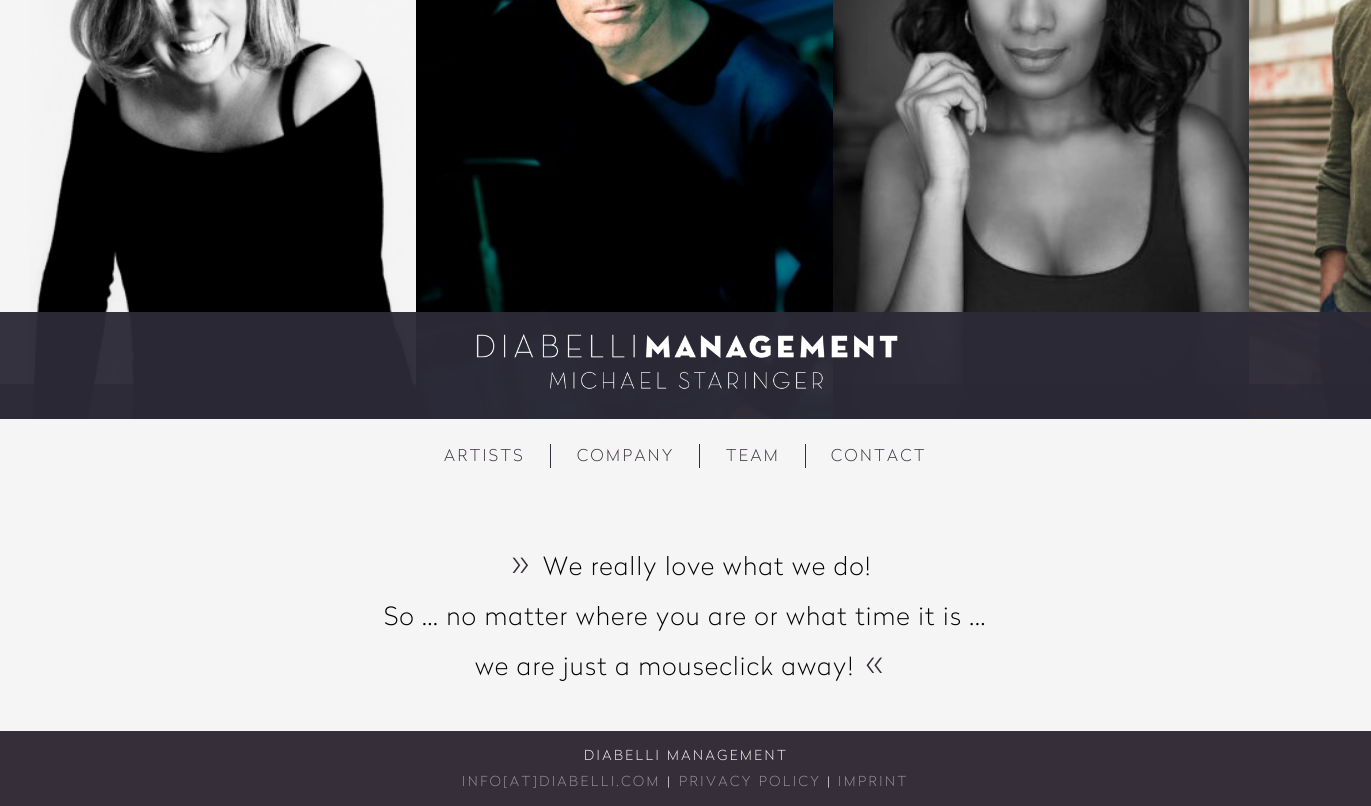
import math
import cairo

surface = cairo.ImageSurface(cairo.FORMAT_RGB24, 1371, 806)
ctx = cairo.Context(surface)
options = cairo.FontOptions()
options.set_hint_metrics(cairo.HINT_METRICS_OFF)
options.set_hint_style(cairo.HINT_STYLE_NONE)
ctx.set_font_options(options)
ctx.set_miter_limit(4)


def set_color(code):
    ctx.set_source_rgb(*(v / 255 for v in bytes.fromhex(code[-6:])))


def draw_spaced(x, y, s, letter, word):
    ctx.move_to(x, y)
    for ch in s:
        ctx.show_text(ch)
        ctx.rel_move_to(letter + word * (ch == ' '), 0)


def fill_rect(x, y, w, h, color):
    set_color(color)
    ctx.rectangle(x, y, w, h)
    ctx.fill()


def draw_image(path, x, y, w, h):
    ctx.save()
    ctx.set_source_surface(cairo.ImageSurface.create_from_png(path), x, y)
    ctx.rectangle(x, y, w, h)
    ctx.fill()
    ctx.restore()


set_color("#f5f5f5")
ctx.paint()
draw_image("assets/img1.png", 29, 0, 387, 419)
ctx.set_source_rgba(0, 0, 0, 0.7)
ctx.rectangle(0, 384, 416, 35)
ctx.fill()
draw_image("assets/img2.png", 416, 0, 417, 419)
draw_image("assets/img3.png", 833, 0, 416, 419)
ctx.rectangle(833, 384, 416, 35)
ctx.fill()
draw_image("assets/img4.png", 1249, 0, 122, 419)
ctx.rectangle(1249, 384, 122, 35)
ctx.fill()
ctx.set_source_rgba(0.176, 0.165, 0.216, 0.96)
ctx.rectangle(0, 312, 1371, 107)
ctx.fill()
draw_image("assets/img5.png", 476, 334, 422, 55)
fill_rect(550, 444, 1, 24, "#362e39")
ctx.select_font_face("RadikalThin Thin")
ctx.set_font_size(16.25)
draw_spaced(444, 461, "ARTISTS", 2.5, 0)
fill_rect(699, 444, 1, 24, "#362e39")
draw_spaced(577, 461, "COMPANY", 2.5, 0)
fill_rect(805, 444, 1, 24, "#362e39")
draw_spaced(726, 461, "TEAM", 2.5, 0)
draw_spaced(831, 461, "CONTACT", 2.5, 0)
ctx.set_font_size(38)
draw_spaced(512, 575, "»", 1.25, 0)
ctx.set_font_size(25)
set_color("#000000")
draw_spaced(543, 575, "We really love what we do!", 1.25, 0)
draw_spaced(384, 625, "So ... no matter where you are or what time it is ...", 1.25, 0)
draw_spaced(475, 675, "we are just a mouseclick away!", 1.25, 0)
ctx.set_font_size(38)
set_color("#362e39")
draw_spaced(866, 675, "«", 1.25, 0)
fill_rect(0, 731, 1371, 75, "#362e39")
ctx.set_font_size(13.75)
set_color("#ffffff")
draw_spaced(584, 760, "DIABELLI MANAGEMENT", 2.5, 0)
set_color("#9b979c")
draw_spaced(462, 786, "INFO[AT]DIABELLI.COM", 2.5, 0)
set_color("#ffffff")
draw_spaced(667, 786, "|", 2.5, 0)
set_color("#9b979c")
draw_spaced(679, 786, "PRIVACY POLICY", 2.5, 0)
set_color("#ffffff")
draw_spaced(827, 786, "|", 2.5, 0)
set_color("#9b979c")
draw_spaced(838, 786, "IMPRINT", 2.5, 0)
surface.write_to_png("output.png")
